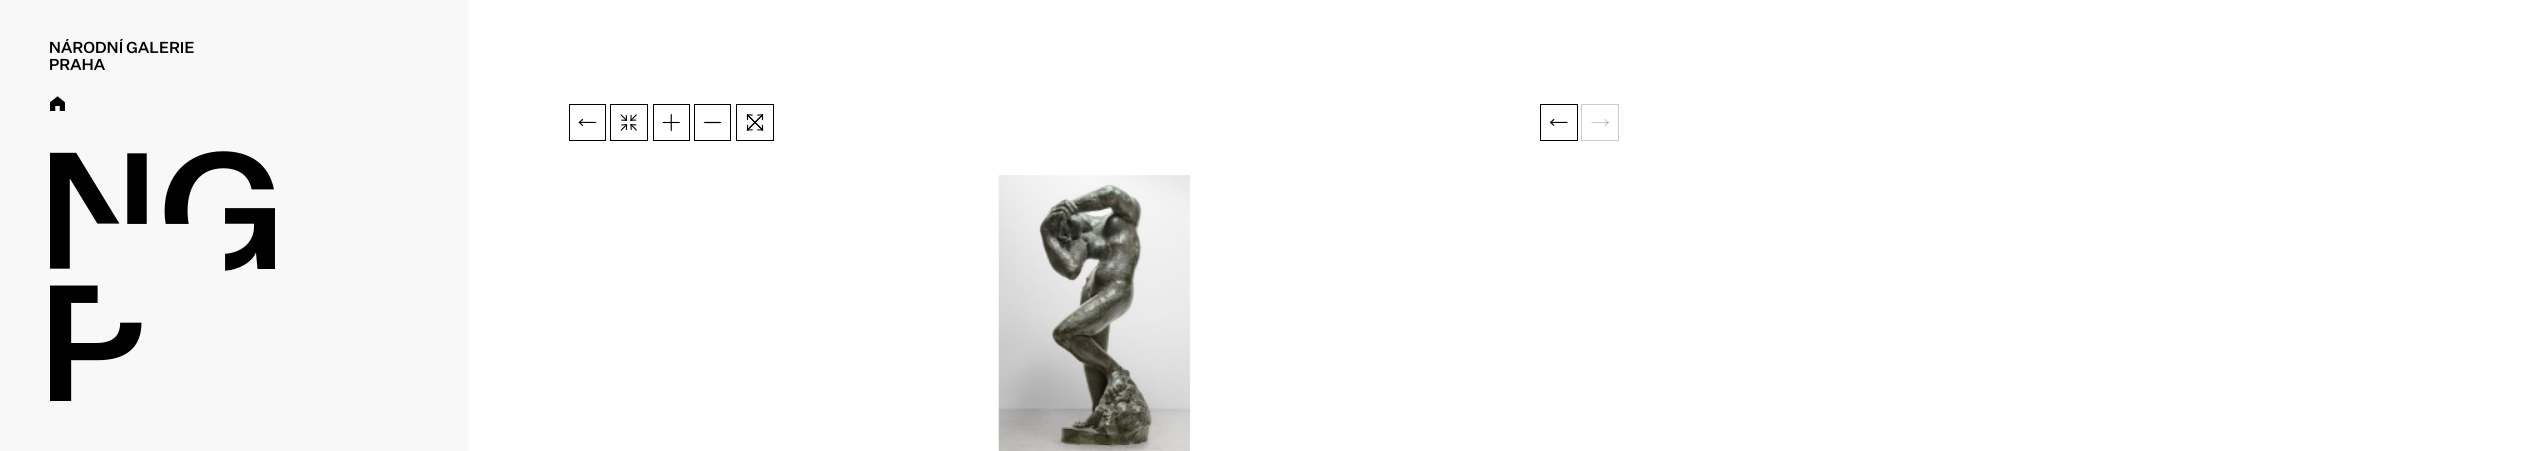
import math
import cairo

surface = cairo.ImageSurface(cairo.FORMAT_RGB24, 2536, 451)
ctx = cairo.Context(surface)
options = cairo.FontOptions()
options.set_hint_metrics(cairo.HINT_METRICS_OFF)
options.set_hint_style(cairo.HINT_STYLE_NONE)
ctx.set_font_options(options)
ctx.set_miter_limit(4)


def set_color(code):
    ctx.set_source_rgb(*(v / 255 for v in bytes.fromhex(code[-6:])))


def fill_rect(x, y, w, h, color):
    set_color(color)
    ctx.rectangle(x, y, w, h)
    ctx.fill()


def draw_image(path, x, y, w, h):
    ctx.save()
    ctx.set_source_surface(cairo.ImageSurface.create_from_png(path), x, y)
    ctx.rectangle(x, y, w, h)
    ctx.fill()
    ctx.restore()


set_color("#ffffff")
ctx.paint()
fill_rect(0, 0, 469, 451, "#f8f8f8")
draw_image("assets/img1.png", 50, 39, 144, 31)
draw_image("assets/img2.png", 50, 96, 15, 15)
draw_image("assets/img3.png", 50, 151, 225, 250)
draw_image("assets/img4.png", 578, 119, 19, 7)
ctx.rectangle(569.5, 104.5, 36, 36)
set_color("#000000")
ctx.set_line_width(1)
ctx.stroke()
draw_image("assets/img5.png", 620, 114, 17, 17)
ctx.rectangle(610.5, 104.5, 37, 36)
ctx.stroke()
draw_image("assets/img6.png", 662, 113, 18, 19)
ctx.rectangle(653.5, 104.5, 36, 36)
ctx.stroke()
draw_image("assets/img7.png", 703, 121, 19, 3)
ctx.rectangle(694.5, 104.5, 36, 36)
ctx.stroke()
draw_image("assets/img8.png", 746, 114, 18, 17)
ctx.rectangle(736.5, 104.5, 37, 36)
ctx.stroke()
draw_image("assets/img9.png", 1550, 119, 18, 7)
ctx.rectangle(1540.5, 104.5, 37, 36)
ctx.stroke()
draw_image("assets/img10.png", 1591, 119, 18, 7)
ctx.rectangle(1581.5, 104.5, 37, 36)
set_color("#cccccc")
ctx.stroke()
draw_image("assets/img11.png", 998, 175, 193, 276)
surface.write_to_png("output.png")
